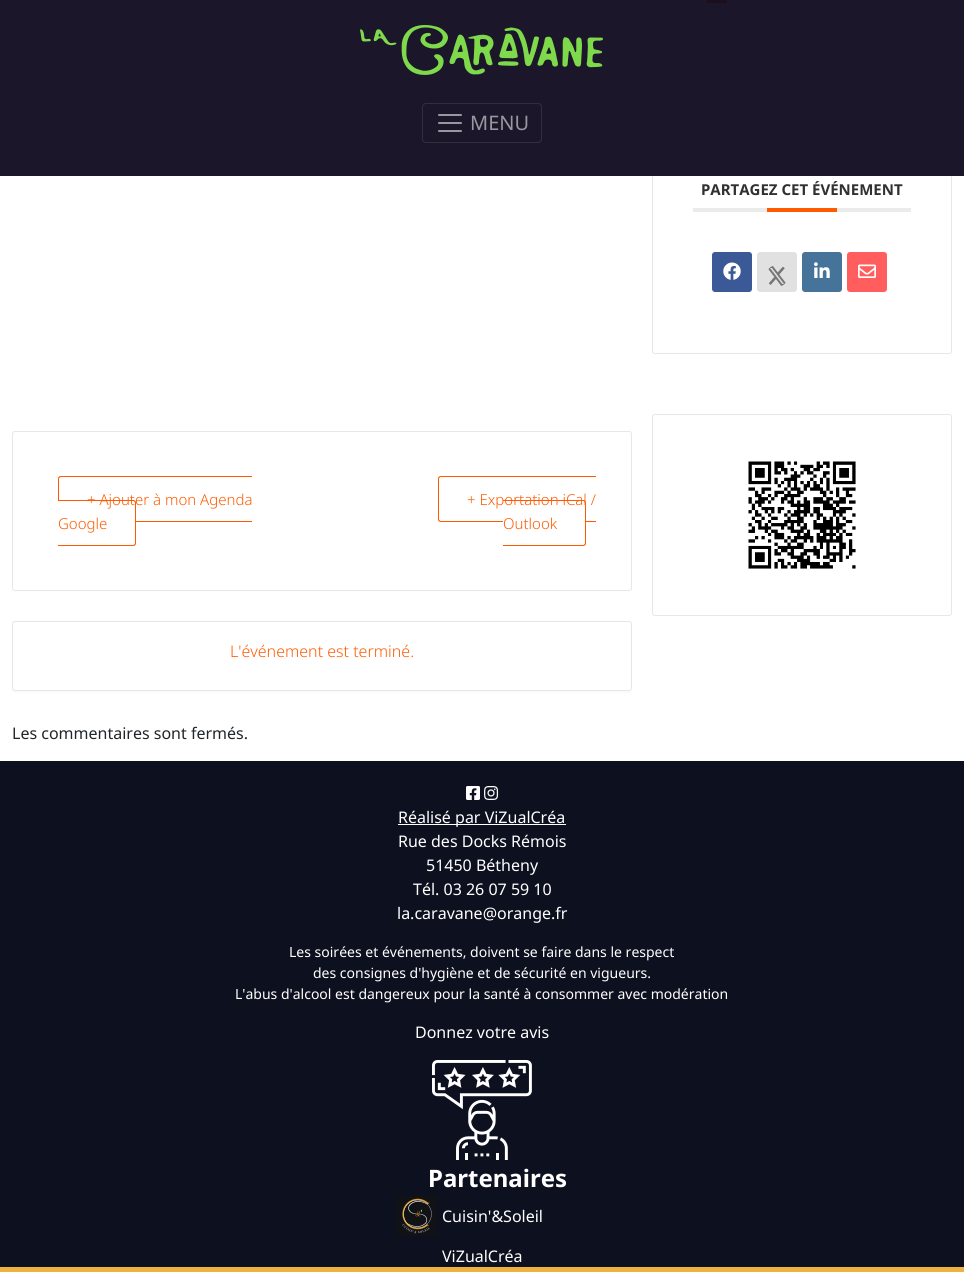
import math
import cairo

surface = cairo.ImageSurface(cairo.FORMAT_RGB24, 964, 1272)
ctx = cairo.Context(surface)
options = cairo.FontOptions()
options.set_hint_metrics(cairo.HINT_METRICS_OFF)
options.set_hint_style(cairo.HINT_STYLE_NONE)
ctx.set_font_options(options)
ctx.set_miter_limit(4)


def set_color(code):
    ctx.set_source_rgb(*(v / 255 for v in bytes.fromhex(code[-6:])))


def draw_text(x, y, s, family, size, color, bold=False, italic=False):
    ctx.select_font_face(family, cairo.FONT_SLANT_ITALIC if italic else cairo.FONT_SLANT_NORMAL, cairo.FONT_WEIGHT_BOLD if bold else cairo.FONT_WEIGHT_NORMAL)
    ctx.set_font_size(size)
    set_color(color)
    ctx.move_to(x, y)
    ctx.show_text(s)


def fill_rect(x, y, w, h, color):
    set_color(color)
    ctx.rectangle(x, y, w, h)
    ctx.fill()


def rounded_rect(x, y, w, h, r):
    ctx.new_sub_path()
    for i, (u, v) in enumerate([(x + w - r, y + h - r), (x + r, y + h - r), (x + r, y + r), (x + w - r, y + r)]):
        ctx.arc(u, v, r, i * math.pi / 2, (i + 1) * math.pi / 2)
    ctx.close_path()


def draw_image(path, x, y, w, h):
    ctx.save()
    ctx.set_source_surface(cairo.ImageSurface.create_from_png(path), x, y)
    ctx.rectangle(x, y, w, h)
    ctx.fill()
    ctx.restore()


set_color("#ffffff")
ctx.paint()
rounded_rect(652.5, -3.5, 299, 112, 2.5)
set_color("#e6e7e8")
ctx.set_line_width(1)
ctx.stroke()
fill_rect(707, 0, 20, 3, "#ff5a00")
rounded_rect(652.5, 139.5, 299, 214, 2.5)
set_color("#e6e7e8")
ctx.stroke()
ctx.set_source_rgba(0.063, 0.043, 0.122, 0.95)
ctx.rectangle(0, 0, 964, 176)
ctx.fill()
draw_image("assets/img1.png", 360, 25, 243, 50)
rounded_rect(422.5, 103.5, 119, 39, 3.5)
set_color("#332e3f")
ctx.stroke()
draw_image("assets/img2.png", 438, 114, 24, 18)
draw_text(470, 130, "MENU", "Noto Sans", 20, "#99979f")
fill_rect(693, 208, 218, 4, "#ebebeb")
draw_text(701, 195, "PARTAGEZ CET ÉVÉNEMENT", "Noto Sans", 15, "#313131", bold=True)
fill_rect(767, 208, 70, 4, "#ff5a00")
set_color("#3b5996")
rounded_rect(712, 252, 40, 40, 3)
ctx.fill()
draw_image("assets/img3.png", 723, 262, 18, 18)
set_color("#e1e1e1")
rounded_rect(757, 252, 40, 40, 3)
ctx.fill()
draw_image("assets/img4.png", 768, 266, 18, 20)
set_color("#457399")
rounded_rect(802, 252, 40, 40, 3)
ctx.fill()
draw_image("assets/img5.png", 814, 262, 16, 16)
set_color("#ff5d5e")
rounded_rect(847, 252, 40, 40, 3)
ctx.fill()
draw_image("assets/img6.png", 858, 264, 18, 14)
rounded_rect(652.5, 414.5, 299, 201, 2.5)
set_color("#e6e7e8")
ctx.stroke()
draw_image("assets/img7.png", 748, 461, 108, 108)
rounded_rect(12.5, 431.5, 619, 159, 2.5)
ctx.stroke()
set_color("#ff5a00")
ctx.set_fill_rule(cairo.FILL_RULE_EVEN_ODD)
ctx.new_path()
ctx.move_to(61, 476)
ctx.line_to(252, 476)
ctx.line_to(252, 522)
ctx.line_to(61, 522)
ctx.curve_to(59, 522, 58, 521, 58, 519)
ctx.line_to(58, 479)
ctx.curve_to(58, 477, 59, 476, 61, 476)
ctx.close_path()
ctx.move_to(61, 477)
ctx.line_to(252, 477)
ctx.line_to(252, 521)
ctx.line_to(61, 521)
ctx.curve_to(60, 521, 59, 520, 59, 519)
ctx.line_to(59, 479)
ctx.curve_to(59, 478, 60, 477, 61, 477)
ctx.close_path()
ctx.fill()
set_color("#ffffff")
ctx.new_path()
ctx.move_to(58, 500)
ctx.line_to(133, 500)
ctx.curve_to(134.5, 500, 136, 501.5, 136, 503)
ctx.line_to(136, 543)
ctx.curve_to(136, 544.5, 134.5, 546, 133, 546)
ctx.line_to(58, 546)
ctx.close_path()
ctx.fill()
set_color("#ff5a00")
ctx.new_path()
ctx.move_to(58, 500)
ctx.line_to(133, 500)
ctx.curve_to(135, 500, 136, 501, 136, 503)
ctx.line_to(136, 543)
ctx.curve_to(136, 545, 135, 546, 133, 546)
ctx.line_to(58, 546)
ctx.close_path()
ctx.move_to(58, 501)
ctx.line_to(133, 501)
ctx.curve_to(134, 501, 135, 502, 135, 503)
ctx.line_to(135, 543)
ctx.curve_to(135, 544, 134, 545, 133, 545)
ctx.line_to(58, 545)
ctx.close_path()
ctx.fill()
draw_text(87, 505, "+ Ajouter à mon Agenda", "Noto Sans Light", 15, "#ff5a00")
draw_text(58, 529, "Google", "Noto Sans Light", 15, "#ff5a00")
ctx.new_path()
ctx.move_to(441, 476)
ctx.line_to(596, 476)
ctx.line_to(596, 522)
ctx.line_to(441, 522)
ctx.curve_to(439, 522, 438, 521, 438, 519)
ctx.line_to(438, 479)
ctx.curve_to(438, 477, 439, 476, 441, 476)
ctx.close_path()
ctx.move_to(441, 477)
ctx.line_to(596, 477)
ctx.line_to(596, 521)
ctx.line_to(441, 521)
ctx.curve_to(440, 521, 439, 520, 439, 519)
ctx.line_to(439, 479)
ctx.curve_to(439, 478, 440, 477, 441, 477)
ctx.close_path()
ctx.fill()
set_color("#ffffff")
ctx.new_path()
ctx.move_to(503, 500)
ctx.line_to(583, 500)
ctx.curve_to(584.5, 500, 586, 501.5, 586, 503)
ctx.line_to(586, 543)
ctx.curve_to(586, 544.5, 584.5, 546, 583, 546)
ctx.line_to(503, 546)
ctx.close_path()
ctx.fill()
set_color("#ff5a00")
ctx.new_path()
ctx.move_to(503, 500)
ctx.line_to(583, 500)
ctx.curve_to(585, 500, 586, 501, 586, 503)
ctx.line_to(586, 543)
ctx.curve_to(586, 545, 585, 546, 583, 546)
ctx.line_to(503, 546)
ctx.close_path()
ctx.move_to(503, 501)
ctx.line_to(583, 501)
ctx.curve_to(584, 501, 585, 502, 585, 503)
ctx.line_to(585, 543)
ctx.curve_to(585, 544, 584, 545, 583, 545)
ctx.line_to(503, 545)
ctx.close_path()
ctx.fill()
draw_text(467, 505, "+ Exportation iCal /", "Noto Sans Light", 15, "#ff5a00")
draw_text(503, 529, "Outlook", "Noto Sans Light", 15, "#ff5a00")
set_color("#fbfbfb")
ctx.set_fill_rule(cairo.FILL_RULE_WINDING)
ctx.new_path()
ctx.move_to(12, 688)
ctx.curve_to(12, 690, 12, 693, 15, 693)
ctx.line_to(629, 693)
ctx.line_to(631, 692)
ctx.line_to(632, 688)
ctx.curve_to(632, 690, 631, 691, 629, 691)
ctx.line_to(15, 691)
ctx.curve_to(13, 691, 12, 690, 12, 688)
ctx.close_path()
ctx.fill()
rounded_rect(12.5, 621.5, 619, 69, 2.5)
set_color("#e6e6e6")
ctx.stroke()
draw_text(230, 657, "L'événement est terminé.", "Noto Sans Light", 16, "#ff5a00")
draw_text(12, 739, "Les commentaires sont fermés.", "Noto Sans", 16, "#212529")
fill_rect(0, 761, 964, 506, "#0d101f")
draw_image("assets/img8.png", 466, 786, 14, 14)
draw_image("assets/img9.png", 484, 786, 15, 14)
fill_rect(398, 824, 168, 1, "#ffffff")
draw_text(398, 823, "Réalisé par ViZualCréa", "Noto Sans", 16, "#ffffff")
draw_text(398, 847, "Rue des Docks Rémois", "Noto Sans", 16, "#ffffff")
draw_text(426, 871, "51450 Bétheny", "Noto Sans", 16, "#ffffff")
draw_text(413, 895, "Tél. 03 26 07 59 10", "Noto Sans", 16, "#ffffff")
draw_text(397, 919, "la.caravane@orange.fr", "Noto Sans", 16, "#ffffff")
draw_text(289, 957, "Les soirées et événements, doivent se faire dans le respect", "Noto Sans", 14, "#ffffff")
draw_text(313, 978, "des consignes d'hygiène et de sécurité en vigueurs.", "Noto Sans", 14, "#ffffff")
draw_text(235, 999, "L'abus d'alcool est dangereux pour la santé à consommer avec modération", "Noto Sans", 14, "#ffffff")
draw_text(415, 1038, "Donnez votre avis", "Noto Sans", 16, "#ffffff")
draw_image("assets/img10.png", 432, 1060, 100, 100)
draw_text(428, 1187, "Partenaires", "Noto Sans", 24, "#ffffff", bold=True)
draw_image("assets/img11.png", 397, 1196, 40, 40)
draw_text(442, 1222, "Cuisin'&Soleil", "Noto Sans", 16, "#ffffff")
draw_text(442, 1262, "ViZualCréa", "Noto Sans", 16, "#ffffff")
fill_rect(0, 1267, 964, 5, "#ebb342")
surface.write_to_png("output.png")
